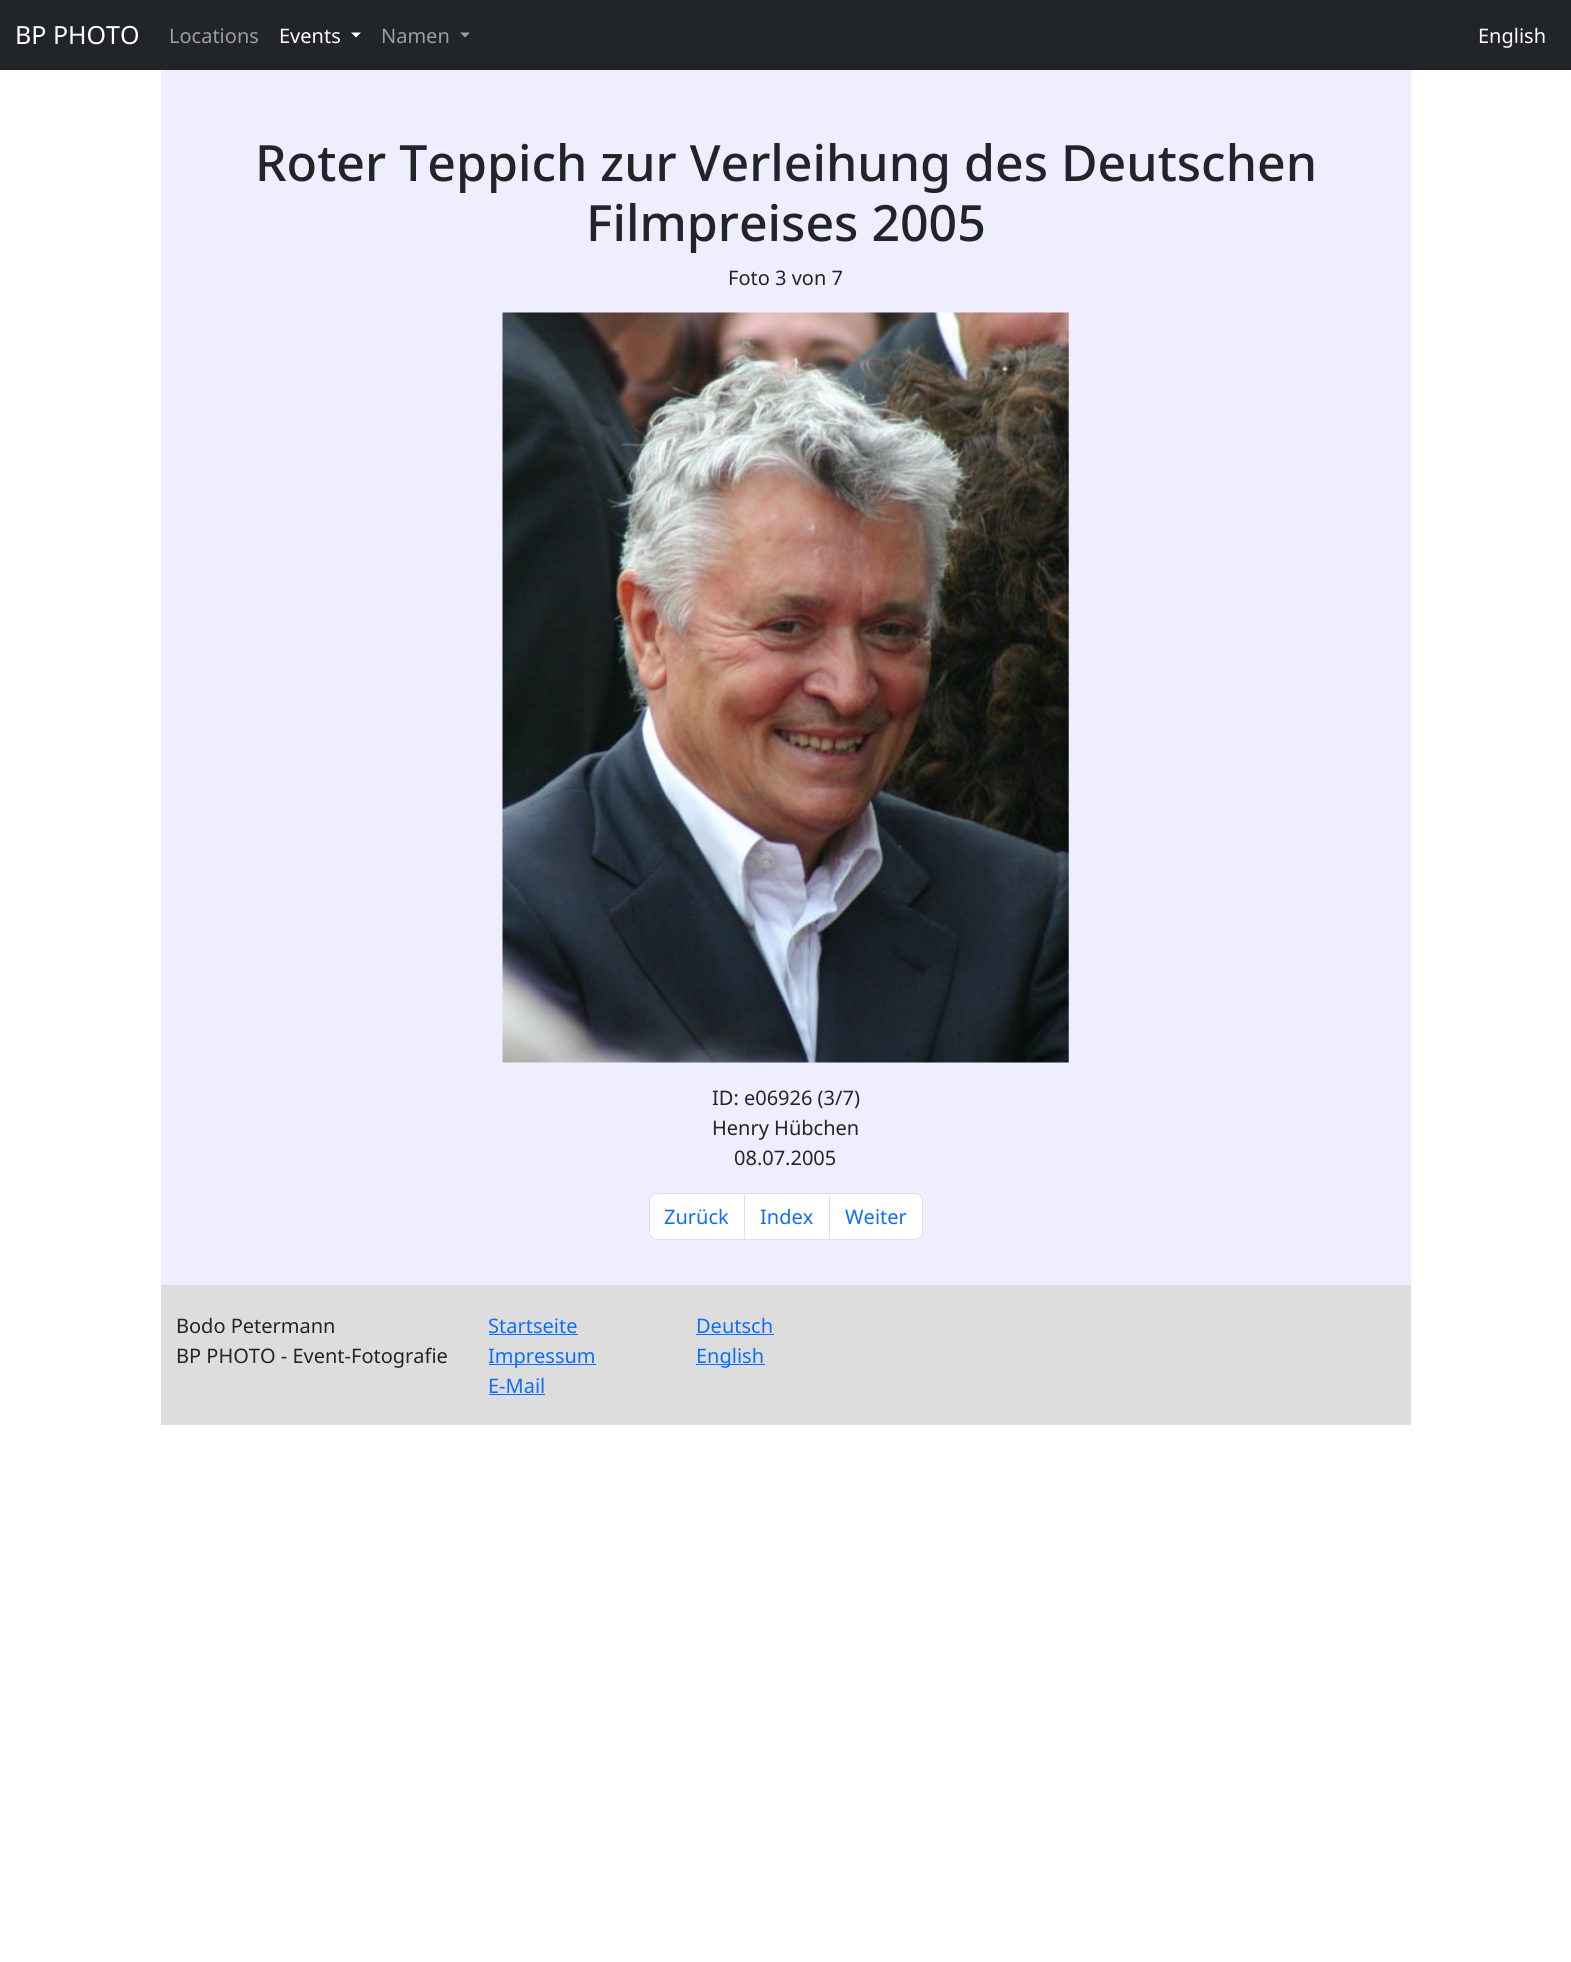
import math
import cairo

surface = cairo.ImageSurface(cairo.FORMAT_RGB24, 1571, 1962)
ctx = cairo.Context(surface)
options = cairo.FontOptions()
options.set_hint_metrics(cairo.HINT_METRICS_OFF)
options.set_hint_style(cairo.HINT_STYLE_NONE)
ctx.set_font_options(options)
ctx.set_miter_limit(4)


def set_color(code):
    ctx.set_source_rgb(*(v / 255 for v in bytes.fromhex(code[-6:])))


def draw_text(x, y, s, family, size, color, bold=False, italic=False):
    ctx.select_font_face(family, cairo.FONT_SLANT_ITALIC if italic else cairo.FONT_SLANT_NORMAL, cairo.FONT_WEIGHT_BOLD if bold else cairo.FONT_WEIGHT_NORMAL)
    ctx.set_font_size(size)
    set_color(color)
    ctx.move_to(x, y)
    ctx.show_text(s)


def fill_rect(x, y, w, h, color):
    set_color(color)
    ctx.rectangle(x, y, w, h)
    ctx.fill()


def draw_image(path, x, y, w, h):
    ctx.save()
    ctx.set_source_surface(cairo.ImageSurface.create_from_png(path), x, y)
    ctx.rectangle(x, y, w, h)
    ctx.fill()
    ctx.restore()


set_color("#ffffff")
ctx.paint()
fill_rect(0, 0, 1571, 70, "#212529")
draw_text(15, 44, "BP PHOTO", "Noto Sans", 25, "#ffffff")
draw_text(169, 43, "Locations", "Noto Sans", 20, "#9b9d9f")
draw_text(279, 43, "Events", "Noto Sans", 20, "#ffffff")
ctx.new_path()
ctx.move_to(351, 32.5)
ctx.line_to(361, 32.5)
ctx.line_to(356, 37.5)
ctx.close_path()
ctx.fill()
draw_text(381, 43, "Namen", "Noto Sans", 20, "#9b9d9f")
ctx.new_path()
ctx.move_to(460, 32.5)
ctx.line_to(470, 32.5)
ctx.line_to(465, 37.5)
ctx.close_path()
ctx.fill()
draw_text(1478, 43, "English", "Noto Sans", 20, "#ffffff")
fill_rect(161, 70, 1250, 1215, "#eeeeff")
draw_text(255, 181, "Roter Teppich zur Verleihung des Deutschen", "Noto Sans Medium", 50, "#212529")
draw_text(586, 241, "Filmpreises 2005", "Noto Sans Medium", 50, "#212529")
draw_text(728, 285, "Foto 3 von 7", "Noto Sans", 20, "#212529")
draw_image("assets/img1.png", 502, 312, 567, 751)
draw_text(712, 1105, "ID: e06926 (3/7)", "Noto Sans", 20, "#212529")
draw_text(712, 1135, "Henry Hübchen", "Noto Sans", 20, "#212529")
draw_text(734, 1165, "08.07.2005", "Noto Sans", 20, "#212529")
set_color("#ffffff")
ctx.new_path()
ctx.move_to(657, 1193.5)
ctx.line_to(744.5, 1193.5)
ctx.line_to(744.5, 1239.5)
ctx.line_to(657, 1239.5)
ctx.curve_to(653, 1239.5, 649.5, 1236, 649.5, 1232)
ctx.line_to(649.5, 1201)
ctx.curve_to(649.5, 1197, 653, 1193.5, 657, 1193.5)
ctx.close_path()
ctx.fill_preserve()
set_color("#dee2e6")
ctx.set_line_width(1)
ctx.stroke()
draw_text(664, 1224, "Zurück", "Noto Sans", 20, "#0d6efd")
set_color("#ffffff")
ctx.rectangle(744.5, 1193.5, 85, 46)
ctx.fill_preserve()
set_color("#dee2e6")
ctx.stroke()
draw_text(760, 1224, "Index", "Noto Sans", 20, "#0d6efd")
set_color("#ffffff")
ctx.new_path()
ctx.move_to(829.5, 1193.5)
ctx.line_to(915, 1193.5)
ctx.curve_to(919, 1193.5, 922.5, 1197, 922.5, 1201)
ctx.line_to(922.5, 1232)
ctx.curve_to(922.5, 1236, 919, 1239.5, 915, 1239.5)
ctx.line_to(829.5, 1239.5)
ctx.close_path()
ctx.fill_preserve()
set_color("#dee2e6")
ctx.stroke()
draw_text(845, 1224, "Weiter", "Noto Sans", 20, "#0d6efd")
fill_rect(161, 1285, 1250, 140, "#dddddd")
draw_text(176, 1333, "Bodo Petermann", "Noto Sans", 20, "#212529")
draw_text(176, 1363, "BP PHOTO - Event-Fotografie", "Noto Sans", 20, "#212529")
draw_text(488, 1333, "Startseite", "Noto Sans", 20, "#0d6efd")
fill_rect(489, 1334, 89, 1, "#0d6efd")
fill_rect(489, 1364, 107, 1, "#0d6efd")
draw_text(488, 1363, "Impressum", "Noto Sans", 20, "#0d6efd")
draw_text(488, 1393, "E-Mail", "Noto Sans", 20, "#0d6efd")
fill_rect(489, 1394, 56, 1, "#0d6efd")
draw_text(696, 1333, "Deutsch", "Noto Sans", 20, "#0d6efd")
fill_rect(696, 1334, 78, 1, "#0d6efd")
fill_rect(696, 1364, 69, 1, "#0d6efd")
draw_text(696, 1363, "English", "Noto Sans", 20, "#0d6efd")
surface.write_to_png("output.png")
